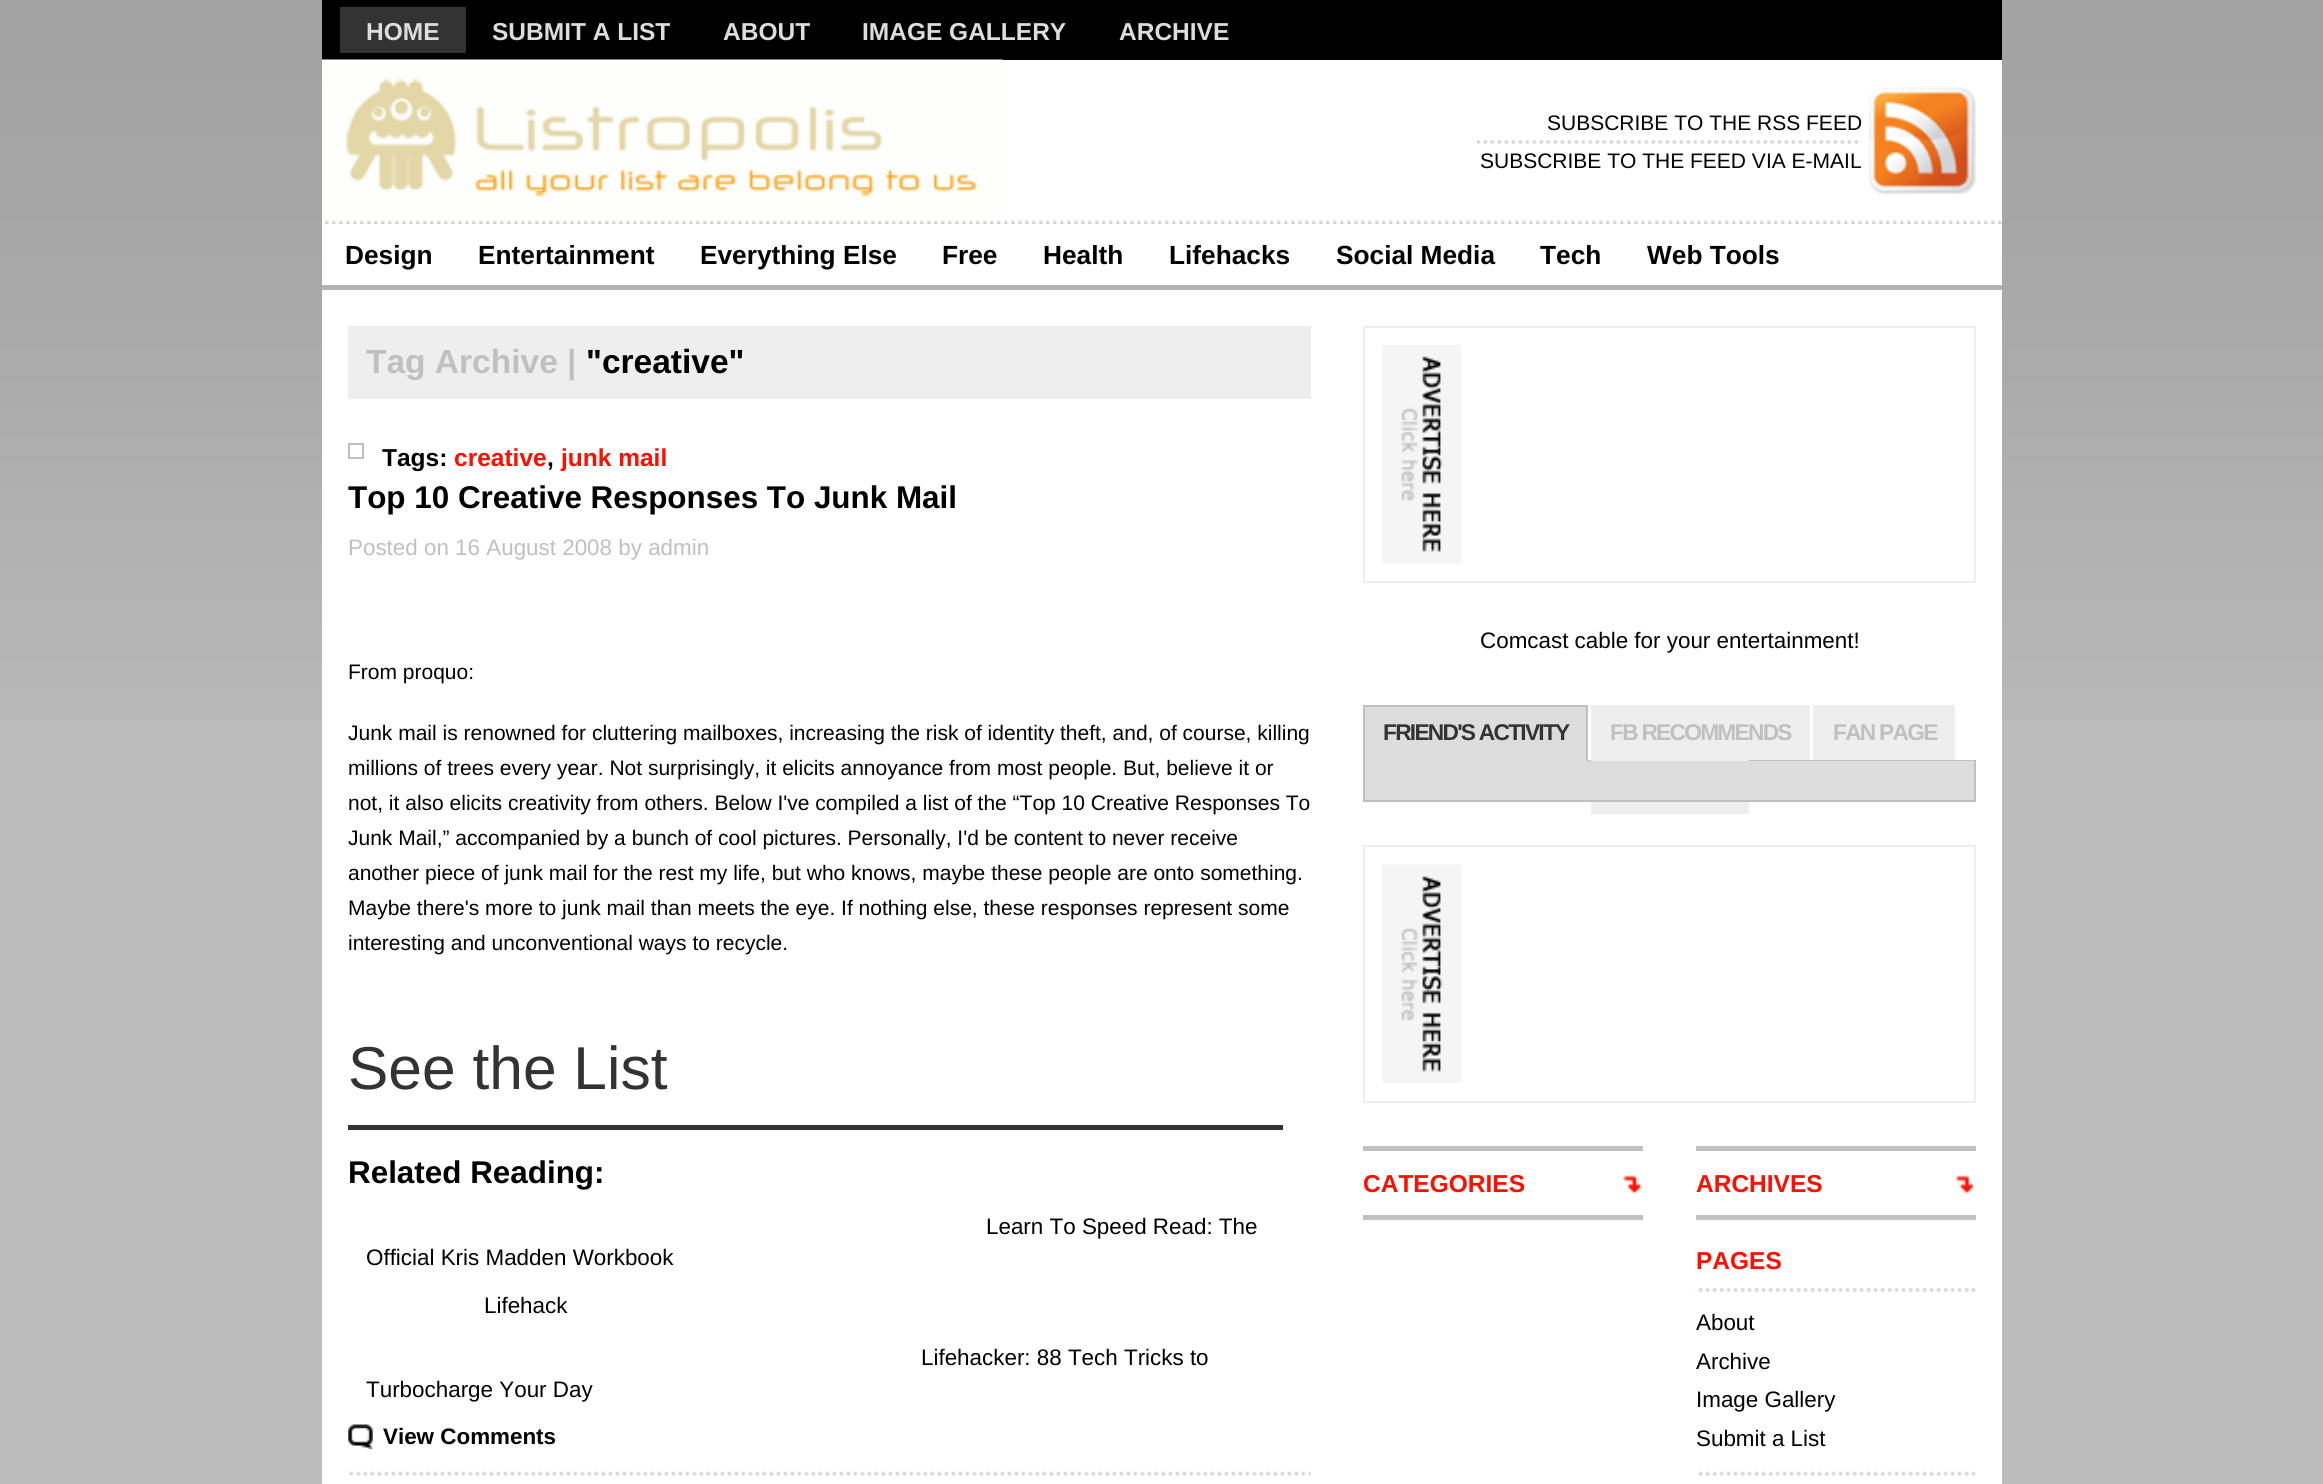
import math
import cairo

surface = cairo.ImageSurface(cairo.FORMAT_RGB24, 2323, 1484)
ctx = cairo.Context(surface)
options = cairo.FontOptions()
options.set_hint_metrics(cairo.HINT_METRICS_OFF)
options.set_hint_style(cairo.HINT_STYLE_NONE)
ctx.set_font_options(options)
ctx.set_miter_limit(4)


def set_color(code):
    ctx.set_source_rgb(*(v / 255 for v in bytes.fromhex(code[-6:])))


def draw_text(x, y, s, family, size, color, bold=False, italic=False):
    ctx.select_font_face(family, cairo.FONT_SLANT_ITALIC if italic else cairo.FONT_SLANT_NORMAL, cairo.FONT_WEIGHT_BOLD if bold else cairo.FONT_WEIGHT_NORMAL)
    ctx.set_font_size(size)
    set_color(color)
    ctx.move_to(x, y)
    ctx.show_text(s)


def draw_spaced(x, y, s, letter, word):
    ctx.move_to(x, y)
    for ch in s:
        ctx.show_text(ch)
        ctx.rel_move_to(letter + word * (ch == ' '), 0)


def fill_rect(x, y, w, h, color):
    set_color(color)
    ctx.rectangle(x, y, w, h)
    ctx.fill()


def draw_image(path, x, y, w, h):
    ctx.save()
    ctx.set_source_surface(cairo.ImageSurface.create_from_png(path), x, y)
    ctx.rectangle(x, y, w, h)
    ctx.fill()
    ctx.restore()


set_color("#bcbcbc")
ctx.paint()
draw_image("assets/img1.png", 0, 0, 2323, 720)
fill_rect(322, 60, 1680, 1424, "#ffffff")
fill_rect(322, 0, 1680, 60, "#000000")
fill_rect(340, 7, 126, 46, "#333333")
draw_text(366, 40, "HOME", "Liberation Sans", 24.5, "#dddddd", bold=True)
draw_text(492, 40, "SUBMIT A LIST", "Liberation Sans", 24.5, "#dddddd", bold=True)
draw_text(723, 40, "ABOUT", "Liberation Sans", 24.5, "#dddddd", bold=True)
draw_text(862, 40, "IMAGE GALLERY", "Liberation Sans", 24.5, "#dddddd", bold=True)
draw_text(1119, 40, "ARCHIVE", "Liberation Sans", 24.5, "#dddddd", bold=True)
draw_image("assets/img2.png", 322, 220, 1680, 4)
draw_image("assets/img3.png", 322, 59, 681, 162)
draw_image("assets/img4.png", 1477, 140, 385, 4)
draw_text(1547, 130, "SUBSCRIBE TO THE RSS FEED", "Liberation Sans", 21, "#000000")
draw_text(1480, 168, "SUBSCRIBE TO THE FEED VIA E-MAIL", "Liberation Sans", 21, "#000000")
draw_image("assets/img5.png", 1869, 87, 107, 108)
fill_rect(322, 285, 1680, 5, "#b3b3b3")
draw_text(345, 264, "Design", "Liberation Sans", 26.25, "#000000", bold=True)
draw_text(478, 264, "Entertainment", "Liberation Sans", 26.25, "#000000", bold=True)
draw_text(700, 264, "Everything Else", "Liberation Sans", 26.25, "#000000", bold=True)
draw_text(942, 264, "Free", "Liberation Sans", 26.25, "#000000", bold=True)
draw_text(1043, 264, "Health", "Liberation Sans", 26.25, "#000000", bold=True)
draw_text(1169, 264, "Lifehacks", "Liberation Sans", 26.25, "#000000", bold=True)
draw_text(1336, 264, "Social Media", "Liberation Sans", 26.25, "#000000", bold=True)
draw_text(1540, 264, "Tech", "Liberation Sans", 26.25, "#000000", bold=True)
draw_text(1647, 264, "Web Tools", "Liberation Sans", 26.25, "#000000", bold=True)
fill_rect(348, 326, 963, 73, "#eeeeee")
draw_text(366, 373, "Tag Archive |", "Liberation Sans", 33.5, "#c0c0c0", bold=True)
draw_text(586, 373, "\"creative\"", "Liberation Sans", 33.5, "#000000", bold=True)
draw_image("assets/img6.png", 349, 1471, 962, 5)
ctx.rectangle(349, 444, 14, 14)
set_color("#c0c0c0")
ctx.stroke()
draw_text(382, 466, "Tags:", "Liberation Sans", 24.5, "#000000", bold=True)
draw_text(454, 466, "creative", "Liberation Sans", 24.5, "#ff0e00", bold=True)
draw_text(547, 466, ",", "Liberation Sans", 24.5, "#000000", bold=True)
draw_text(561, 466, "junk mail", "Liberation Sans", 24.5, "#ff0e00", bold=True)
draw_text(348, 508, "Top 10 Creative Responses To Junk Mail", "Liberation Sans", 31.4, "#000000", bold=True)
draw_text(348, 555, "Posted on 16 August 2008 by admin", "Liberation Sans", 22.4, "#c0c0c0")
draw_text(348, 679, "From proquo:", "Liberation Sans", 21, "#000000")
draw_text(348, 740, "Junk mail is renowned for cluttering mailboxes, increasing the risk of identity theft, and, of course, killing", "Liberation Sans", 21, "#000000")
draw_text(348, 775, "millions of trees every year. Not surprisingly, it elicits annoyance from most people. But, believe it or", "Liberation Sans", 21, "#000000")
draw_text(348, 810, "not, it also elicits creativity from others. Below I've compiled a list of the “Top 10 Creative Responses To", "Liberation Sans", 21, "#000000")
draw_text(348, 845, "Junk Mail,” accompanied by a bunch of cool pictures. Personally, I'd be content to never receive", "Liberation Sans", 21, "#000000")
draw_text(348, 880, "another piece of junk mail for the rest my life, but who knows, maybe these people are onto something.", "Liberation Sans", 21, "#000000")
draw_text(348, 915, "Maybe there's more to junk mail than meets the eye. If nothing else, these responses represent some", "Liberation Sans", 21, "#000000")
draw_text(348, 950, "interesting and unconventional ways to recycle.", "Liberation Sans", 21, "#000000")
fill_rect(348, 1125, 935, 5, "#333333")
draw_text(348, 1089, "See the List", "Liberation Sans", 60.5, "#333333")
draw_text(348, 1183, "Related Reading:", "Liberation Sans", 31.4, "#000000", bold=True)
draw_text(986, 1234, "Learn To Speed Read: The", "Liberation Sans", 22.4, "#000000")
draw_text(366, 1265, "Official Kris Madden Workbook", "Liberation Sans", 22.4, "#000000")
draw_text(484, 1313, "Lifehack", "Liberation Sans", 22.4, "#000000")
draw_text(921, 1365, "Lifehacker: 88 Tech Tricks to", "Liberation Sans", 22.4, "#000000")
draw_text(366, 1397, "Turbocharge Your Day", "Liberation Sans", 22.4, "#000000")
draw_image("assets/img7.png", 348, 1424, 25, 25)
draw_text(383, 1444, "View Comments", "Liberation Sans", 22.4, "#000000", bold=True)
ctx.rectangle(1364, 327, 611, 255)
set_color("#eeeeee")
ctx.stroke()
draw_image("assets/img8.png", 1382, 345, 79, 219)
draw_text(1480, 648, "Comcast cable for your entertainment!", "Liberation Sans", 22.4, "#000000")
fill_rect(1588, 760, 388, 1, "#c0c0c0")
fill_rect(1365, 707, 221, 53, "#dddddd")
fill_rect(1363, 705, 224, 2, "#c0c0c0")
fill_rect(1586, 705, 2, 56, "#c0c0c0")
fill_rect(1363, 760, 224, 1, "#dddddd")
fill_rect(1363, 705, 2, 56, "#c0c0c0")
ctx.select_font_face("Liberation Sans", cairo.FONT_SLANT_NORMAL, cairo.FONT_WEIGHT_BOLD)
ctx.set_font_size(22.75)
set_color("#333333")
draw_spaced(1383, 740, "FRIEND'S ACTIVITY", -1.75, 0)
fill_rect(1591, 705, 219, 55, "#eeeeee")
set_color("#c0c0c0")
draw_spaced(1610, 740, "FB RECOMMENDS", -1.75, 0)
fill_rect(1813, 705, 142, 55, "#eeeeee")
set_color("#c0c0c0")
draw_spaced(1833, 740, "FAN PAGE", -1.75, 0)
fill_rect(1591, 760, 158, 54, "#eeeeee")
fill_rect(1365, 761, 609, 39, "#dddddd")
fill_rect(1974, 761, 2, 41, "#c0c0c0")
fill_rect(1363, 800, 613, 2, "#c0c0c0")
fill_rect(1363, 761, 2, 41, "#c0c0c0")
ctx.rectangle(1364, 846, 611, 256)
set_color("#eeeeee")
ctx.stroke()
draw_image("assets/img9.png", 1382, 864, 79, 219)
fill_rect(1363, 1146, 280, 5, "#c0c0c0")
fill_rect(1363, 1215, 280, 5, "#c0c0c0")
draw_image("assets/img10.png", 1623, 1175, 19, 19)
draw_text(1363, 1192, "CATEGORIES", "Liberation Sans", 24.5, "#ff0e00", bold=True)
fill_rect(1696, 1146, 280, 5, "#c0c0c0")
fill_rect(1696, 1215, 280, 5, "#c0c0c0")
draw_image("assets/img11.png", 1956, 1175, 19, 19)
draw_text(1696, 1192, "ARCHIVES", "Liberation Sans", 24.5, "#ff0e00", bold=True)
draw_image("assets/img12.png", 1695, 1288, 281, 4)
draw_text(1696, 1269, "PAGES", "Liberation Sans", 24.5, "#ff0e00", bold=True)
draw_image("assets/img13.png", 1695, 1471, 281, 5)
draw_text(1696, 1330, "About", "Liberation Sans", 22.4, "#000000")
draw_text(1696, 1369, "Archive", "Liberation Sans", 22.4, "#000000")
draw_text(1696, 1407, "Image Gallery", "Liberation Sans", 22.4, "#000000")
draw_text(1696, 1446, "Submit a List", "Liberation Sans", 22.4, "#000000")
surface.write_to_png("output.png")
